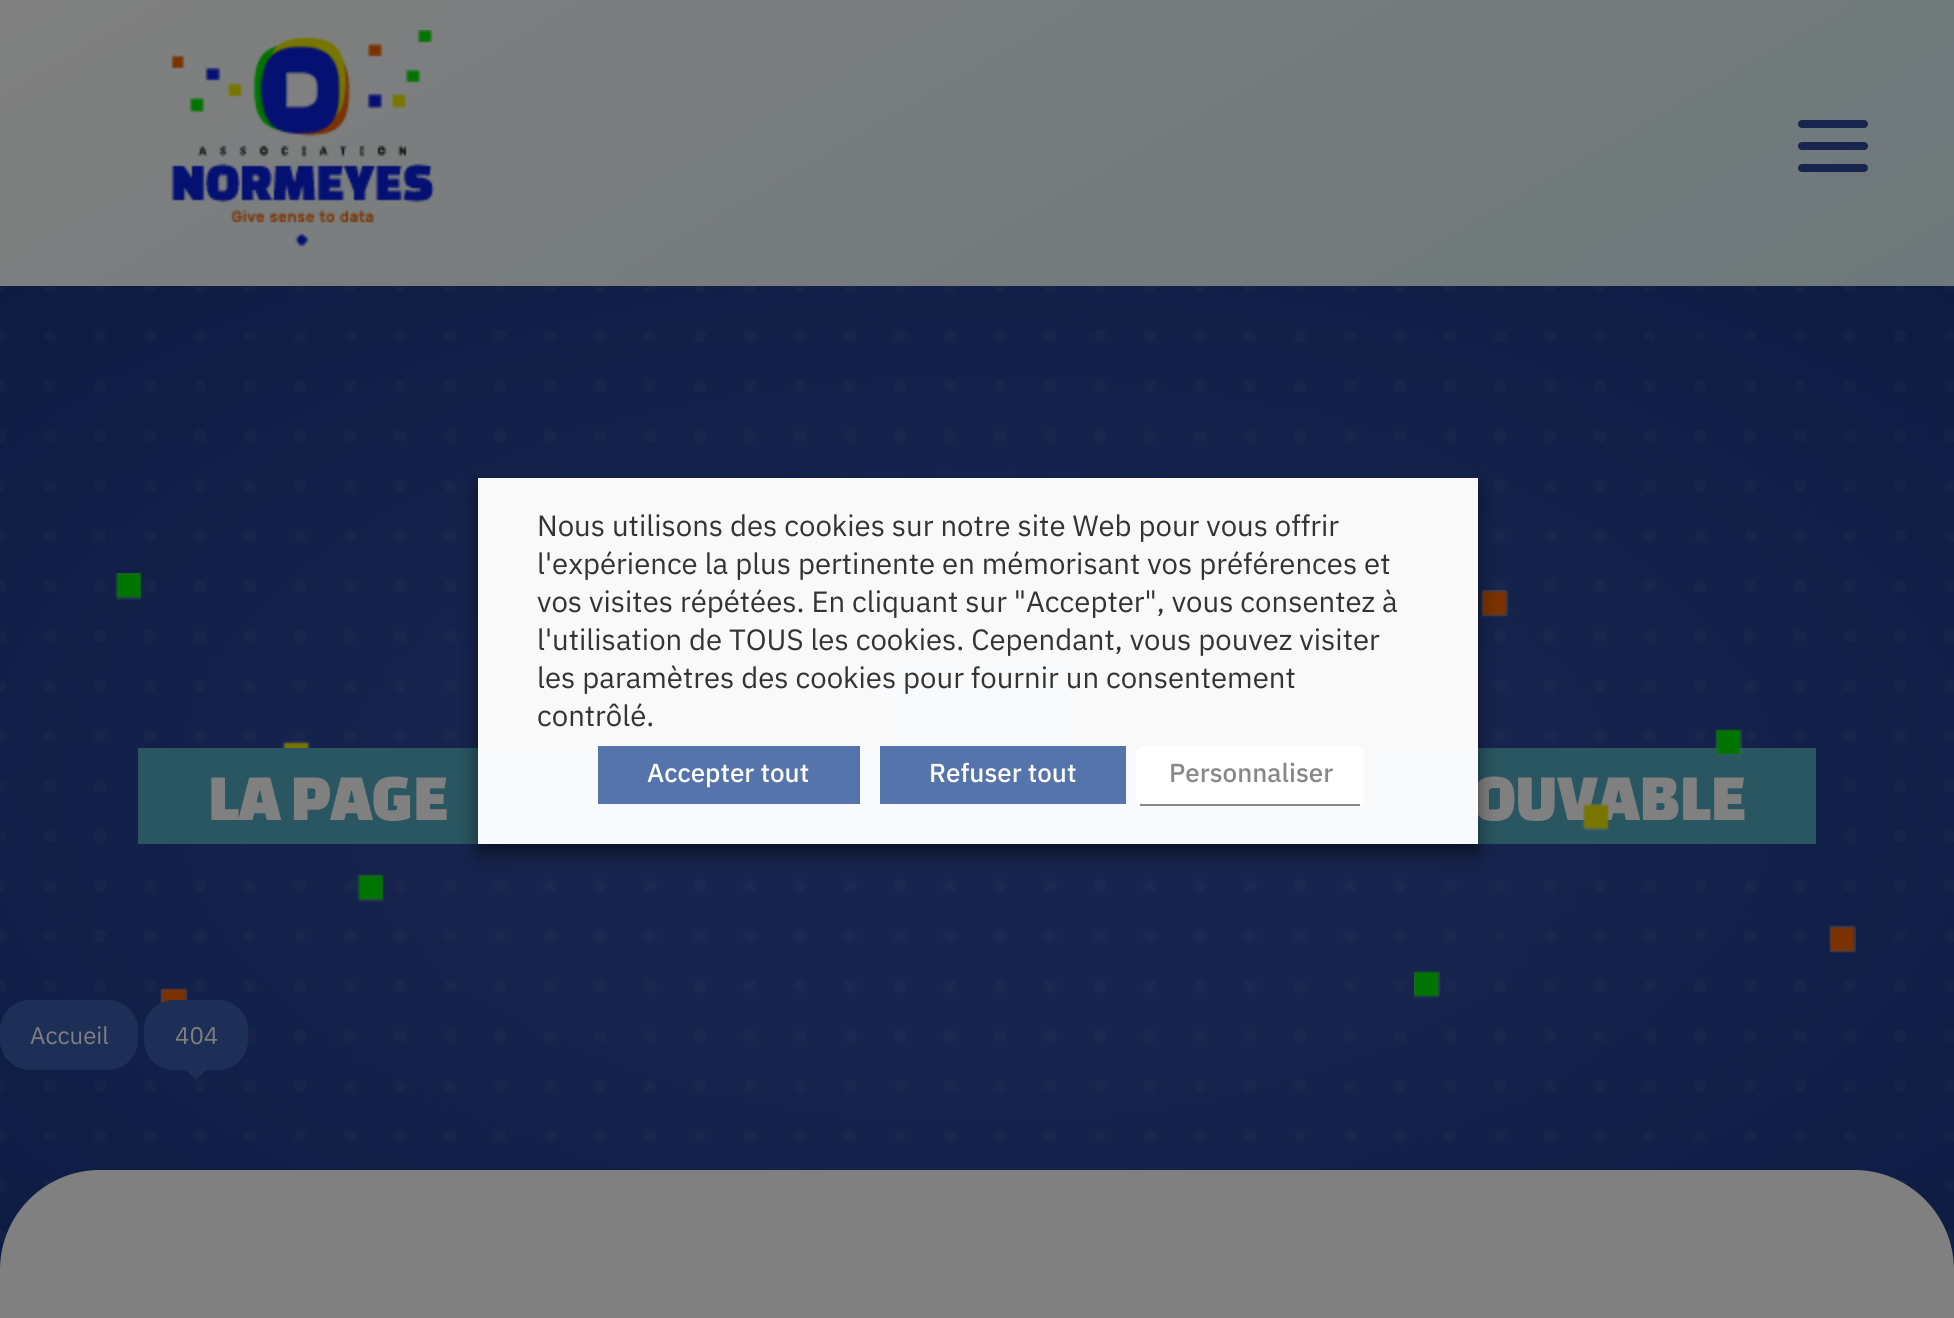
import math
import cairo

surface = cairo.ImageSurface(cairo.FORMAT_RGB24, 1954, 1318)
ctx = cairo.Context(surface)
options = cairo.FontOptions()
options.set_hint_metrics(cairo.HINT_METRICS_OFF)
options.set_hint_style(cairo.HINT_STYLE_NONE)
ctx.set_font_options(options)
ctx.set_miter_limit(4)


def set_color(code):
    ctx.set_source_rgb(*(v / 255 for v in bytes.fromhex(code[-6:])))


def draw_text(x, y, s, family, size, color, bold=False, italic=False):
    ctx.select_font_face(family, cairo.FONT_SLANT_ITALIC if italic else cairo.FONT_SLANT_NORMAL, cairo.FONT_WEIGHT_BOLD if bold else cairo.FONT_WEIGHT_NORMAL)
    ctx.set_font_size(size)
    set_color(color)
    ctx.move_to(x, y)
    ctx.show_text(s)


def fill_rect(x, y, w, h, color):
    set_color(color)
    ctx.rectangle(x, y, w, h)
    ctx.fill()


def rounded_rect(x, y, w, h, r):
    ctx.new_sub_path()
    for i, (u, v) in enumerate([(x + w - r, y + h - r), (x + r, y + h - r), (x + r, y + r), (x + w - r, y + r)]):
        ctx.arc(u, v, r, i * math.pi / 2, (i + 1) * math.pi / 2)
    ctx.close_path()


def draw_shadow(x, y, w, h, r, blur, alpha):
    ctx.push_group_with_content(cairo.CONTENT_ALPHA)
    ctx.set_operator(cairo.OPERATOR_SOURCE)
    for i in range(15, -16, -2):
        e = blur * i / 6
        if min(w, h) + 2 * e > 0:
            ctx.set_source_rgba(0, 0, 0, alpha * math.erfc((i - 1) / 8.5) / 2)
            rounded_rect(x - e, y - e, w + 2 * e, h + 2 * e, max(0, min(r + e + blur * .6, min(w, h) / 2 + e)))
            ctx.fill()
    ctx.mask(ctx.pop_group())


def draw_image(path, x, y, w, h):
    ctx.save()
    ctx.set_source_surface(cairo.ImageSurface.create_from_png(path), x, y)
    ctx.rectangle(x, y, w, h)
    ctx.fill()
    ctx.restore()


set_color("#ffffff")
ctx.paint()
draw_image("assets/img2.png", 0, 286, 1954, 984)
draw_image("assets/img3.png", 115, 573, 408, 431)
fill_rect(882, 660, 190, 86, "#295661")
fill_rect(138, 748, 1678, 96, "#295661")
draw_text(1473, 820, "OUVABLE", "Changa One", 68, "#808080")
draw_image("assets/img4.png", 1414, 590, 442, 408)
ctx.save()
ctx.set_fill_rule(cairo.FILL_RULE_EVEN_ODD)
ctx.new_path()
ctx.move_to(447, 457)
ctx.line_to(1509, 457)
ctx.line_to(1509, 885)
ctx.line_to(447, 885)
ctx.close_path()
ctx.move_to(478, 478)
ctx.line_to(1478, 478)
ctx.line_to(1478, 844)
ctx.line_to(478, 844)
ctx.close_path()
ctx.clip()
set_color("#000000")
draw_shadow(478, 488, 1000, 366, 0, 10, 0.5)
ctx.restore()
ctx.set_source_rgba(1, 1, 1, 0.97)
ctx.rectangle(478, 478, 1000, 366)
ctx.fill()
draw_text(537, 536, "Nous utilisons des cookies sur notre site Web pour vous offrir", "IBM Plex Sans", 29.3, "#333333")
draw_text(537, 574, "l'expérience la plus pertinente en mémorisant vos préférences et", "IBM Plex Sans", 29.3, "#333333")
draw_text(537, 612, "vos visites répétées. En cliquant sur \"Accepter\", vous consentez à", "IBM Plex Sans", 29.3, "#333333")
draw_text(537, 650, "l'utilisation de TOUS les cookies. Cependant, vous pouvez visiter", "IBM Plex Sans", 29.3, "#333333")
draw_text(537, 688, "les paramètres des cookies pour fournir un consentement", "IBM Plex Sans", 29.3, "#333333")
draw_text(537, 726, "contrôlé.", "IBM Plex Sans", 29.3, "#333333")
fill_rect(598, 746, 262, 58, "#5674ac")
draw_text(647, 782, "Accepter tout", "IBM Plex Sans Medium", 26, "#ffffff")
fill_rect(880, 746, 246, 58, "#5674ac")
draw_text(929, 782, "Refuser tout", "IBM Plex Sans Medium", 26, "#ffffff")
rounded_rect(1136, 746, 228, 60, 8)
ctx.fill()
fill_rect(1140, 804, 220, 2, "#898888")
draw_text(1169, 782, "Personnaliser", "IBM Plex Sans Medium", 26, "#898888")
gradient = cairo.LinearGradient(1283, 673, 671, -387)
gradient.add_color_stop_rgba(0, 0.427, 0.471, 0.478, 1)
gradient.add_color_stop_rgba(1, 0.502, 0.502, 0.502, 1)
ctx.set_source(gradient)
ctx.rectangle(0, 0, 1954, 286)
ctx.fill()
draw_image("assets/img1.png", 171, 30, 264, 217)
set_color("#17254f")
rounded_rect(1798, 120, 70, 8, 4)
ctx.fill()
rounded_rect(1798, 142, 70, 8, 4)
ctx.fill()
rounded_rect(1798, 164, 70, 8, 4)
ctx.fill()
draw_text(208, 820, "LA PAGE", "Changa One", 68, "#808080")
set_color("#1d2e57")
rounded_rect(0, 1000, 138, 70, 30)
ctx.fill()
draw_text(30, 1044, "Accueil", "IBM Plex Sans", 24, "#808080")
set_color("#1d2e57")
rounded_rect(144, 1000, 104, 70, 30)
ctx.fill()
draw_text(175, 1044, "404", "IBM Plex Sans", 24, "#808080")
set_color("#1d2e57")
ctx.new_path()
ctx.move_to(186, 1070)
ctx.line_to(206, 1070)
ctx.line_to(196, 1080)
ctx.close_path()
ctx.fill()
set_color("#808080")
rounded_rect(0, 1170, 1954, 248, 100)
ctx.fill()
surface.write_to_png("output.png")
